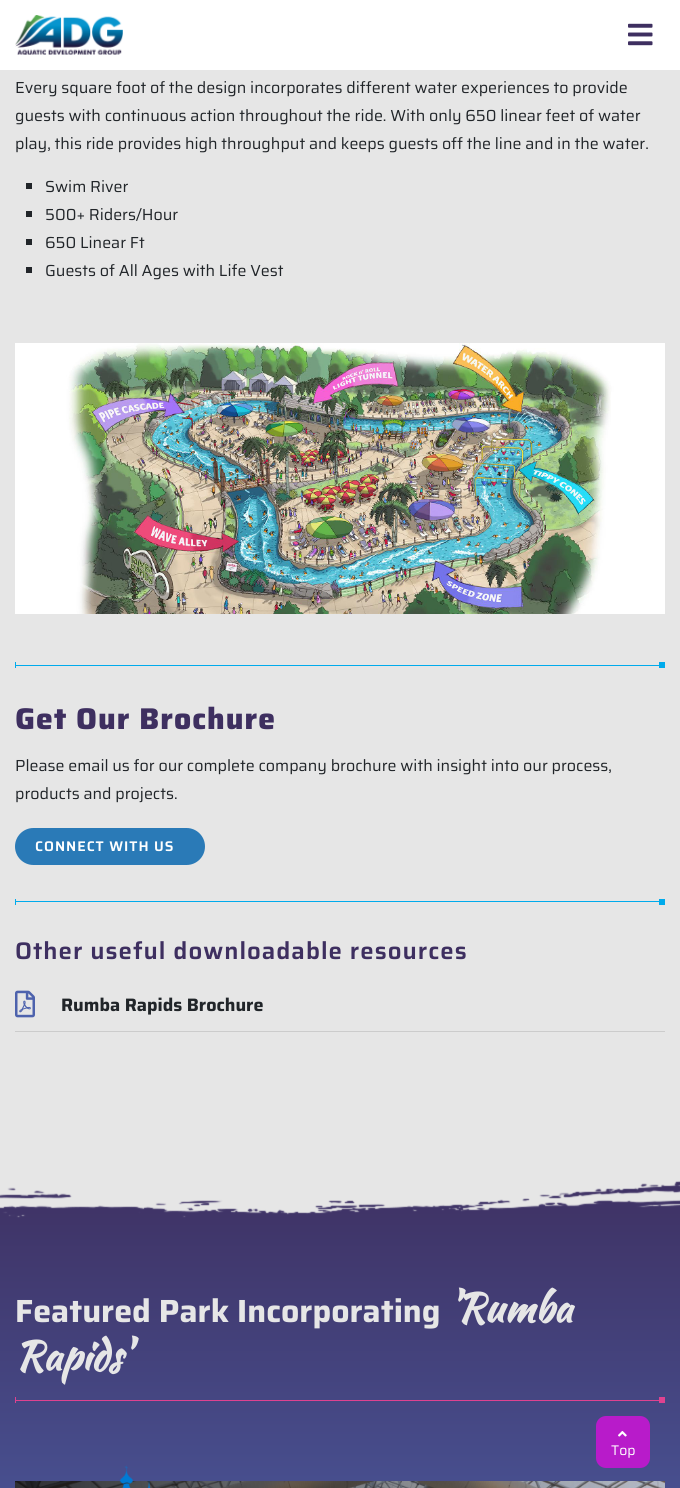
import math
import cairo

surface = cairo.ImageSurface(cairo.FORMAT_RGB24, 680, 1488)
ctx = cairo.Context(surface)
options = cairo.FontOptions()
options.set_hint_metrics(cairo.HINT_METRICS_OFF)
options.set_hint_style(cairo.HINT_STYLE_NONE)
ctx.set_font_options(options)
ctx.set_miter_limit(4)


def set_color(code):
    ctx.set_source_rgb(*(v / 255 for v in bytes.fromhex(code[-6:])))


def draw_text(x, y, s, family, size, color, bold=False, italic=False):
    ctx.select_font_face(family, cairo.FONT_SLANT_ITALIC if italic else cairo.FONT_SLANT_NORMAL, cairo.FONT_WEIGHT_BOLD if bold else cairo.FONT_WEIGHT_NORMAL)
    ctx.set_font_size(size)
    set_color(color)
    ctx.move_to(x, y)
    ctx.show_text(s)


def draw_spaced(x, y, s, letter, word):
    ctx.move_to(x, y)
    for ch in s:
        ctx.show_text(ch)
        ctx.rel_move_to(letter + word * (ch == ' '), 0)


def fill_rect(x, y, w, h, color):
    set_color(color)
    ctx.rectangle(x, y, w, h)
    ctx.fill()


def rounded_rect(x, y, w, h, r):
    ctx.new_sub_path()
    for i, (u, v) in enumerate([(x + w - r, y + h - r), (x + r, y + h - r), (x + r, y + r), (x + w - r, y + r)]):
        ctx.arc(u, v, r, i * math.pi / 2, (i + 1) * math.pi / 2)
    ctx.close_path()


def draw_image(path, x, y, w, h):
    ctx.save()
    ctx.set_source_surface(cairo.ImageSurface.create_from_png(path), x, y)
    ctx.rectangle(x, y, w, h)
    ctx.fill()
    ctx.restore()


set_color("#e6e6e6")
ctx.paint()
fill_rect(0, 0, 680, 70, "#ffffff")
draw_image("assets/img1.png", 15, 15, 108, 40)
draw_image("assets/img2.png", 628, 23, 25, 23)
draw_text(15, 93, "Every square foot of the design incorporates different water experiences to provide", "Saira", 16, "#212529")
draw_text(15, 121, "guests with continuous action throughout the ride. With only 650 linear feet of water", "Saira", 16, "#212529")
draw_text(15, 149, "play, this ride provides high throughput and keeps guests off the line and in the water.", "Saira", 16, "#212529")
fill_rect(26, 183, 6, 6, "#212529")
draw_text(45, 192, "Swim River", "Saira", 16, "#212529")
fill_rect(26, 211, 6, 6, "#212529")
draw_text(45, 220, "500+ Riders/Hour", "Saira", 16, "#212529")
fill_rect(26, 239, 6, 6, "#212529")
draw_text(45, 248, "650 Linear Ft", "Saira", 16, "#212529")
fill_rect(26, 267, 6, 6, "#212529")
draw_text(45, 276, "Guests of All Ages with Life Vest", "Saira", 16, "#212529")
draw_image("assets/img3.png", 15, 343, 650, 271)
fill_rect(15, 665, 650, 1, "#00abec")
fill_rect(15, 662, 1, 6, "#00abec")
fill_rect(659, 662, 6, 6, "#00abec")
ctx.select_font_face("Saira ExtraBold")
ctx.set_font_size(30)
set_color("#3e2f60")
draw_spaced(15, 729, "Get Our Brochure", 1, 0)
draw_text(15, 771, "Please email us for our complete company brochure with insight into our process,", "Saira", 16, "#212529")
draw_text(15, 799, "products and projects.", "Saira", 16, "#212529")
set_color("#2a7ab7")
rounded_rect(15, 828, 190, 37, 18.5)
ctx.fill()
ctx.select_font_face("Saira SemiBold")
ctx.set_font_size(14)
set_color("#ffffff")
draw_spaced(35, 851, "CONNECT WITH US", 1, 0)
fill_rect(15, 901, 650, 1, "#00abec")
fill_rect(15, 899, 1, 6, "#00abec")
fill_rect(659, 899, 6, 6, "#00abec")
ctx.set_font_size(24)
set_color("#3e2f60")
draw_spaced(15, 959, "Other useful downloadable resources", 1, 0)
fill_rect(15, 1031, 650, 1, "#cccccc")
draw_image("assets/img4.png", 15, 990, 20, 28)
draw_text(61, 1011, "Rumba Rapids Brochure", "Saira", 18, "#212529", bold=True)
gradient = cairo.LinearGradient(340, 1156, 340, 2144)
gradient.add_color_stop_rgba(0, 0.243, 0.184, 0.376, 1)
gradient.add_color_stop_rgba(0.5, 0.298, 0.369, 0.647, 1)
gradient.add_color_stop_rgba(1, 0.243, 0.184, 0.376, 1)
ctx.set_source(gradient)
ctx.rectangle(0, 1180, 680, 308)
ctx.fill()
draw_image("assets/img5.png", 0, 1156, 680, 62)
draw_text(15, 1322, "Featured Park Incorporating", "Saira", 32, "#e6e6e6", bold=True)
draw_text(449, 1322, "'Rumba", "Kaushan Script", 40, "#e6e6e6", bold=True)
draw_text(15, 1370, "Rapids'", "Kaushan Script", 40, "#e6e6e6", bold=True)
fill_rect(15, 1400, 650, 1, "#df4290")
fill_rect(15, 1397, 1, 6, "#df4290")
fill_rect(659, 1397, 6, 6, "#df4290")
draw_image("assets/img6.png", 15, 1481, 650, 7)
draw_image("assets/img7.png", 119, 1465, 32, 23)
set_color("#b81bca")
rounded_rect(596, 1416, 54, 52, 10)
ctx.fill()
draw_image("assets/img8.png", 618, 1431, 9, 6)
draw_text(611, 1455, "Top", "Saira", 14, "#ffffff")
surface.write_to_png("output.png")
